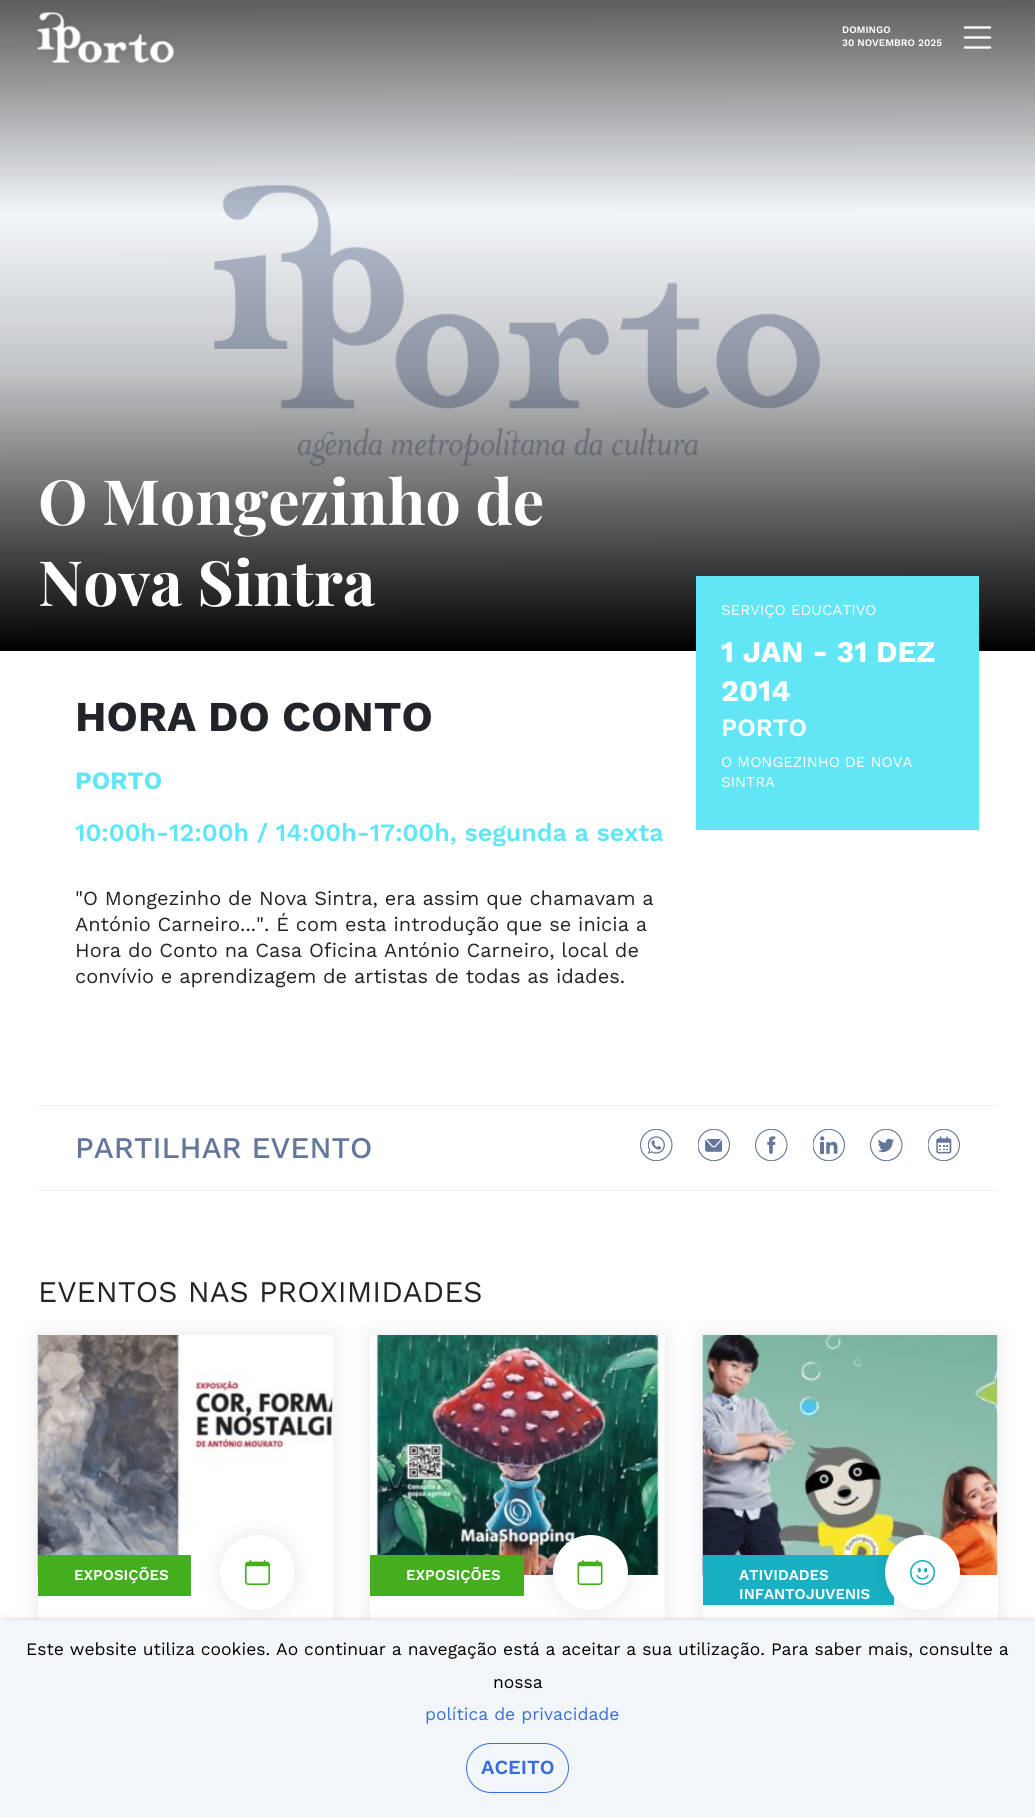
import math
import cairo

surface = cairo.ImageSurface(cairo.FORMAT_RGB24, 1035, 1817)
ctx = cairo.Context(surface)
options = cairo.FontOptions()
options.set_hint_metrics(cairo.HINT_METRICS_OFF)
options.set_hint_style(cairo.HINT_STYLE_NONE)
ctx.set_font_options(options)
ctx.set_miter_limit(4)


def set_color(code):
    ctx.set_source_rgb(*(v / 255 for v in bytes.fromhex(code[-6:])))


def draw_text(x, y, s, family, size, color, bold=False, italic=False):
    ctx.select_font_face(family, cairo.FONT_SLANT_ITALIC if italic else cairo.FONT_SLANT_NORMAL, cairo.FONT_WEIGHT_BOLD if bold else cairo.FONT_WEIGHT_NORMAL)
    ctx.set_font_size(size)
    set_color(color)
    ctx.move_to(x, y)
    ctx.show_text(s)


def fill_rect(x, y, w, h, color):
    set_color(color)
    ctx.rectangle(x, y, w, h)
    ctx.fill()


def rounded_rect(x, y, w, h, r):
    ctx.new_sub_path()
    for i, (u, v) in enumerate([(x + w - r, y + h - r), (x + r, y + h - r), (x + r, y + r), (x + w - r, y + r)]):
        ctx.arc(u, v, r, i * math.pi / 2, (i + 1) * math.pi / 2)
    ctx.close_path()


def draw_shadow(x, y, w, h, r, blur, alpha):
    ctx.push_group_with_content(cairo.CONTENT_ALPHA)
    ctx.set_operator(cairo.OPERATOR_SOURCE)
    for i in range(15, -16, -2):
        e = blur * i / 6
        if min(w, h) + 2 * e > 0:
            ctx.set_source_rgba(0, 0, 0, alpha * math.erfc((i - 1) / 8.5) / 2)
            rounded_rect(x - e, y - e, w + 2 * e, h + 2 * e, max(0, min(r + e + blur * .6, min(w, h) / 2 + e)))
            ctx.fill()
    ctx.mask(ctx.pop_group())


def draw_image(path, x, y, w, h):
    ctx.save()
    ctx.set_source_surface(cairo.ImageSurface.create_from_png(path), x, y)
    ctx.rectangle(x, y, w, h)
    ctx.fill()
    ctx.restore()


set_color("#ffffff")
ctx.paint()
draw_image("assets/img3.png", 0, 0, 1035, 651)
draw_image("assets/img1.png", 37, 12, 137, 51)
draw_text(842, 33, "DOMINGO", "Work Sans SemiBold", 10, "#ffffff")
draw_text(842, 46, "30 NOVEMBRO 2025", "Work Sans SemiBold", 10, "#ffffff")
draw_image("assets/img2.png", 963, 26, 29, 23)
draw_text(38, 525, "O Mongezinho de", "Playfair Display", 62.5, "#ffffff", bold=True)
draw_text(38, 606, "Nova Sintra", "Playfair Display", 62.5, "#ffffff", bold=True)
draw_text(75, 731, "HORA DO CONTO", "Work Sans", 42.5, "#212529", bold=True)
draw_text(75, 789, "PORTO", "Work Sans", 25, "#62e6f6", bold=True)
draw_text(75, 841, "10:00h-12:00h / 14:00h-17:00h, segunda a sexta", "Work Sans SemiBold", 25, "#62e6f6")
fill_rect(696, 576, 283, 254, "#62e6f6")
draw_text(721, 615, "SERVIÇO EDUCATIVO", "Work Sans", 15, "#ffffff")
draw_text(721, 662, "1 JAN - 31 DEZ", "Work Sans", 30, "#ffffff", bold=True)
draw_text(721, 701, "2014", "Work Sans", 30, "#ffffff", bold=True)
draw_text(721, 736, "PORTO", "Work Sans SemiBold", 25, "#ffffff")
draw_text(721, 767, "O MONGEZINHO DE NOVA", "Work Sans", 15, "#ffffff")
draw_text(721, 787, "SINTRA", "Work Sans", 15, "#ffffff")
draw_text(75, 905, "\"O Mongezinho de Nova Sintra, era assim que chamavam a", "Work Sans", 20, "#212529")
draw_text(75, 931, "António Carneiro...\". É com esta introdução que se inicia a", "Work Sans", 20, "#212529")
draw_text(75, 957, "Hora do Conto na Casa Oficina António Carneiro, local de", "Work Sans", 20, "#212529")
draw_text(75, 983, "convívio e aprendizagem de artistas de todas as idades.", "Work Sans", 20, "#212529")
fill_rect(38, 1105, 960, 1, "#f0f1f5")
fill_rect(38, 1190, 960, 1, "#f0f1f5")
draw_text(75, 1158, "PARTILHAR EVENTO", "Work Sans Medium", 30, "#64769a")
draw_image("assets/img4.png", 640, 1129, 33, 32)
draw_image("assets/img5.png", 698, 1129, 32, 32)
draw_image("assets/img6.png", 755, 1129, 33, 32)
draw_image("assets/img7.png", 813, 1129, 32, 32)
draw_image("assets/img8.png", 870, 1129, 33, 32)
draw_image("assets/img9.png", 928, 1129, 32, 32)
draw_text(38, 1302, "EVENTOS NAS PROXIMIDADES", "Work Sans", 30, "#212529")
ctx.save()
ctx.set_fill_rule(cairo.FILL_RULE_EVEN_ODD)
ctx.new_path()
ctx.move_to(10, 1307)
ctx.line_to(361, 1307)
ctx.line_to(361, 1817)
ctx.line_to(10, 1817)
ctx.close_path()
ctx.move_to(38, 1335)
ctx.line_to(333, 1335)
ctx.line_to(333, 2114)
ctx.line_to(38, 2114)
ctx.close_path()
ctx.clip()
set_color("#000000")
draw_shadow(38, 1335, 295, 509, 0, 9, 0.1)
ctx.restore()
draw_image("assets/img10.png", 37, 1335, 296, 240)
fill_rect(38, 1555, 153, 41, "#44ae1f")
draw_text(74, 1580, "EXPOSIÇÕES", "Work Sans SemiBold", 15, "#ffffff")
set_color("#000000")
draw_shadow(220, 1535, 75, 75, 37.5, 9, 0.1)
set_color("#ffffff")
ctx.arc(257.5, 1572.5, 37.5, 0, 2 * math.pi)
ctx.fill()
draw_image("assets/img11.png", 245, 1560, 25, 25)
ctx.save()
ctx.set_fill_rule(cairo.FILL_RULE_EVEN_ODD)
ctx.new_path()
ctx.move_to(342, 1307)
ctx.line_to(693, 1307)
ctx.line_to(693, 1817)
ctx.line_to(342, 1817)
ctx.close_path()
ctx.move_to(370, 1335)
ctx.line_to(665, 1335)
ctx.line_to(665, 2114)
ctx.line_to(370, 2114)
ctx.close_path()
ctx.clip()
set_color("#000000")
draw_shadow(370, 1335, 295, 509, 0, 9, 0.1)
ctx.restore()
draw_image("assets/img12.png", 371, 1335, 293, 240)
fill_rect(370, 1555, 154, 41, "#44ae1f")
draw_text(406, 1580, "EXPOSIÇÕES", "Work Sans SemiBold", 15, "#ffffff")
set_color("#000000")
draw_shadow(553, 1535, 75, 75, 37.5, 9, 0.1)
set_color("#ffffff")
ctx.arc(590.5, 1572.5, 37.5, 0, 2 * math.pi)
ctx.fill()
draw_image("assets/img13.png", 577, 1560, 26, 25)
ctx.save()
ctx.set_fill_rule(cairo.FILL_RULE_EVEN_ODD)
ctx.new_path()
ctx.move_to(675, 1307)
ctx.line_to(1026, 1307)
ctx.line_to(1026, 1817)
ctx.line_to(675, 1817)
ctx.close_path()
ctx.move_to(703, 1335)
ctx.line_to(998, 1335)
ctx.line_to(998, 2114)
ctx.line_to(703, 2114)
ctx.close_path()
ctx.clip()
set_color("#000000")
draw_shadow(703, 1335, 295, 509, 0, 9, 0.1)
ctx.restore()
draw_image("assets/img14.png", 702, 1335, 296, 240)
fill_rect(703, 1555, 191, 50, "#18b0c2")
draw_text(739, 1580, "ATIVIDADES", "Work Sans SemiBold", 15, "#ffffff")
draw_text(739, 1599, "INFANTOJUVENIS", "Work Sans SemiBold", 15, "#ffffff")
set_color("#000000")
draw_shadow(885, 1535, 75, 75, 37.5, 9, 0.1)
set_color("#ffffff")
ctx.arc(922.5, 1572.5, 37.5, 0, 2 * math.pi)
ctx.fill()
draw_image("assets/img15.png", 910, 1560, 25, 25)
set_color("#000000")
draw_shadow(3, 1620, 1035, 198, 0, 3, 0.2)
fill_rect(0, 1620, 1035, 197, "#f3f6f9")
draw_text(26, 1655, "Este website utiliza cookies. Ao continuar a navegação está a aceitar a sua utilização. Para saber mais, consulte a", "Work Sans", 17.5, "#000000")
draw_text(493, 1688, "nossa", "Work Sans", 17.5, "#000000")
draw_text(425, 1720, "política de privacidade", "Work Sans", 17.5, "#386ce2")
rounded_rect(466.5, 1743.5, 102, 49, 24.5)
ctx.set_line_width(1)
ctx.stroke()
draw_text(481, 1774, "ACEITO", "Work Sans SemiBold", 20, "#386ce2")
surface.write_to_png("output.png")
